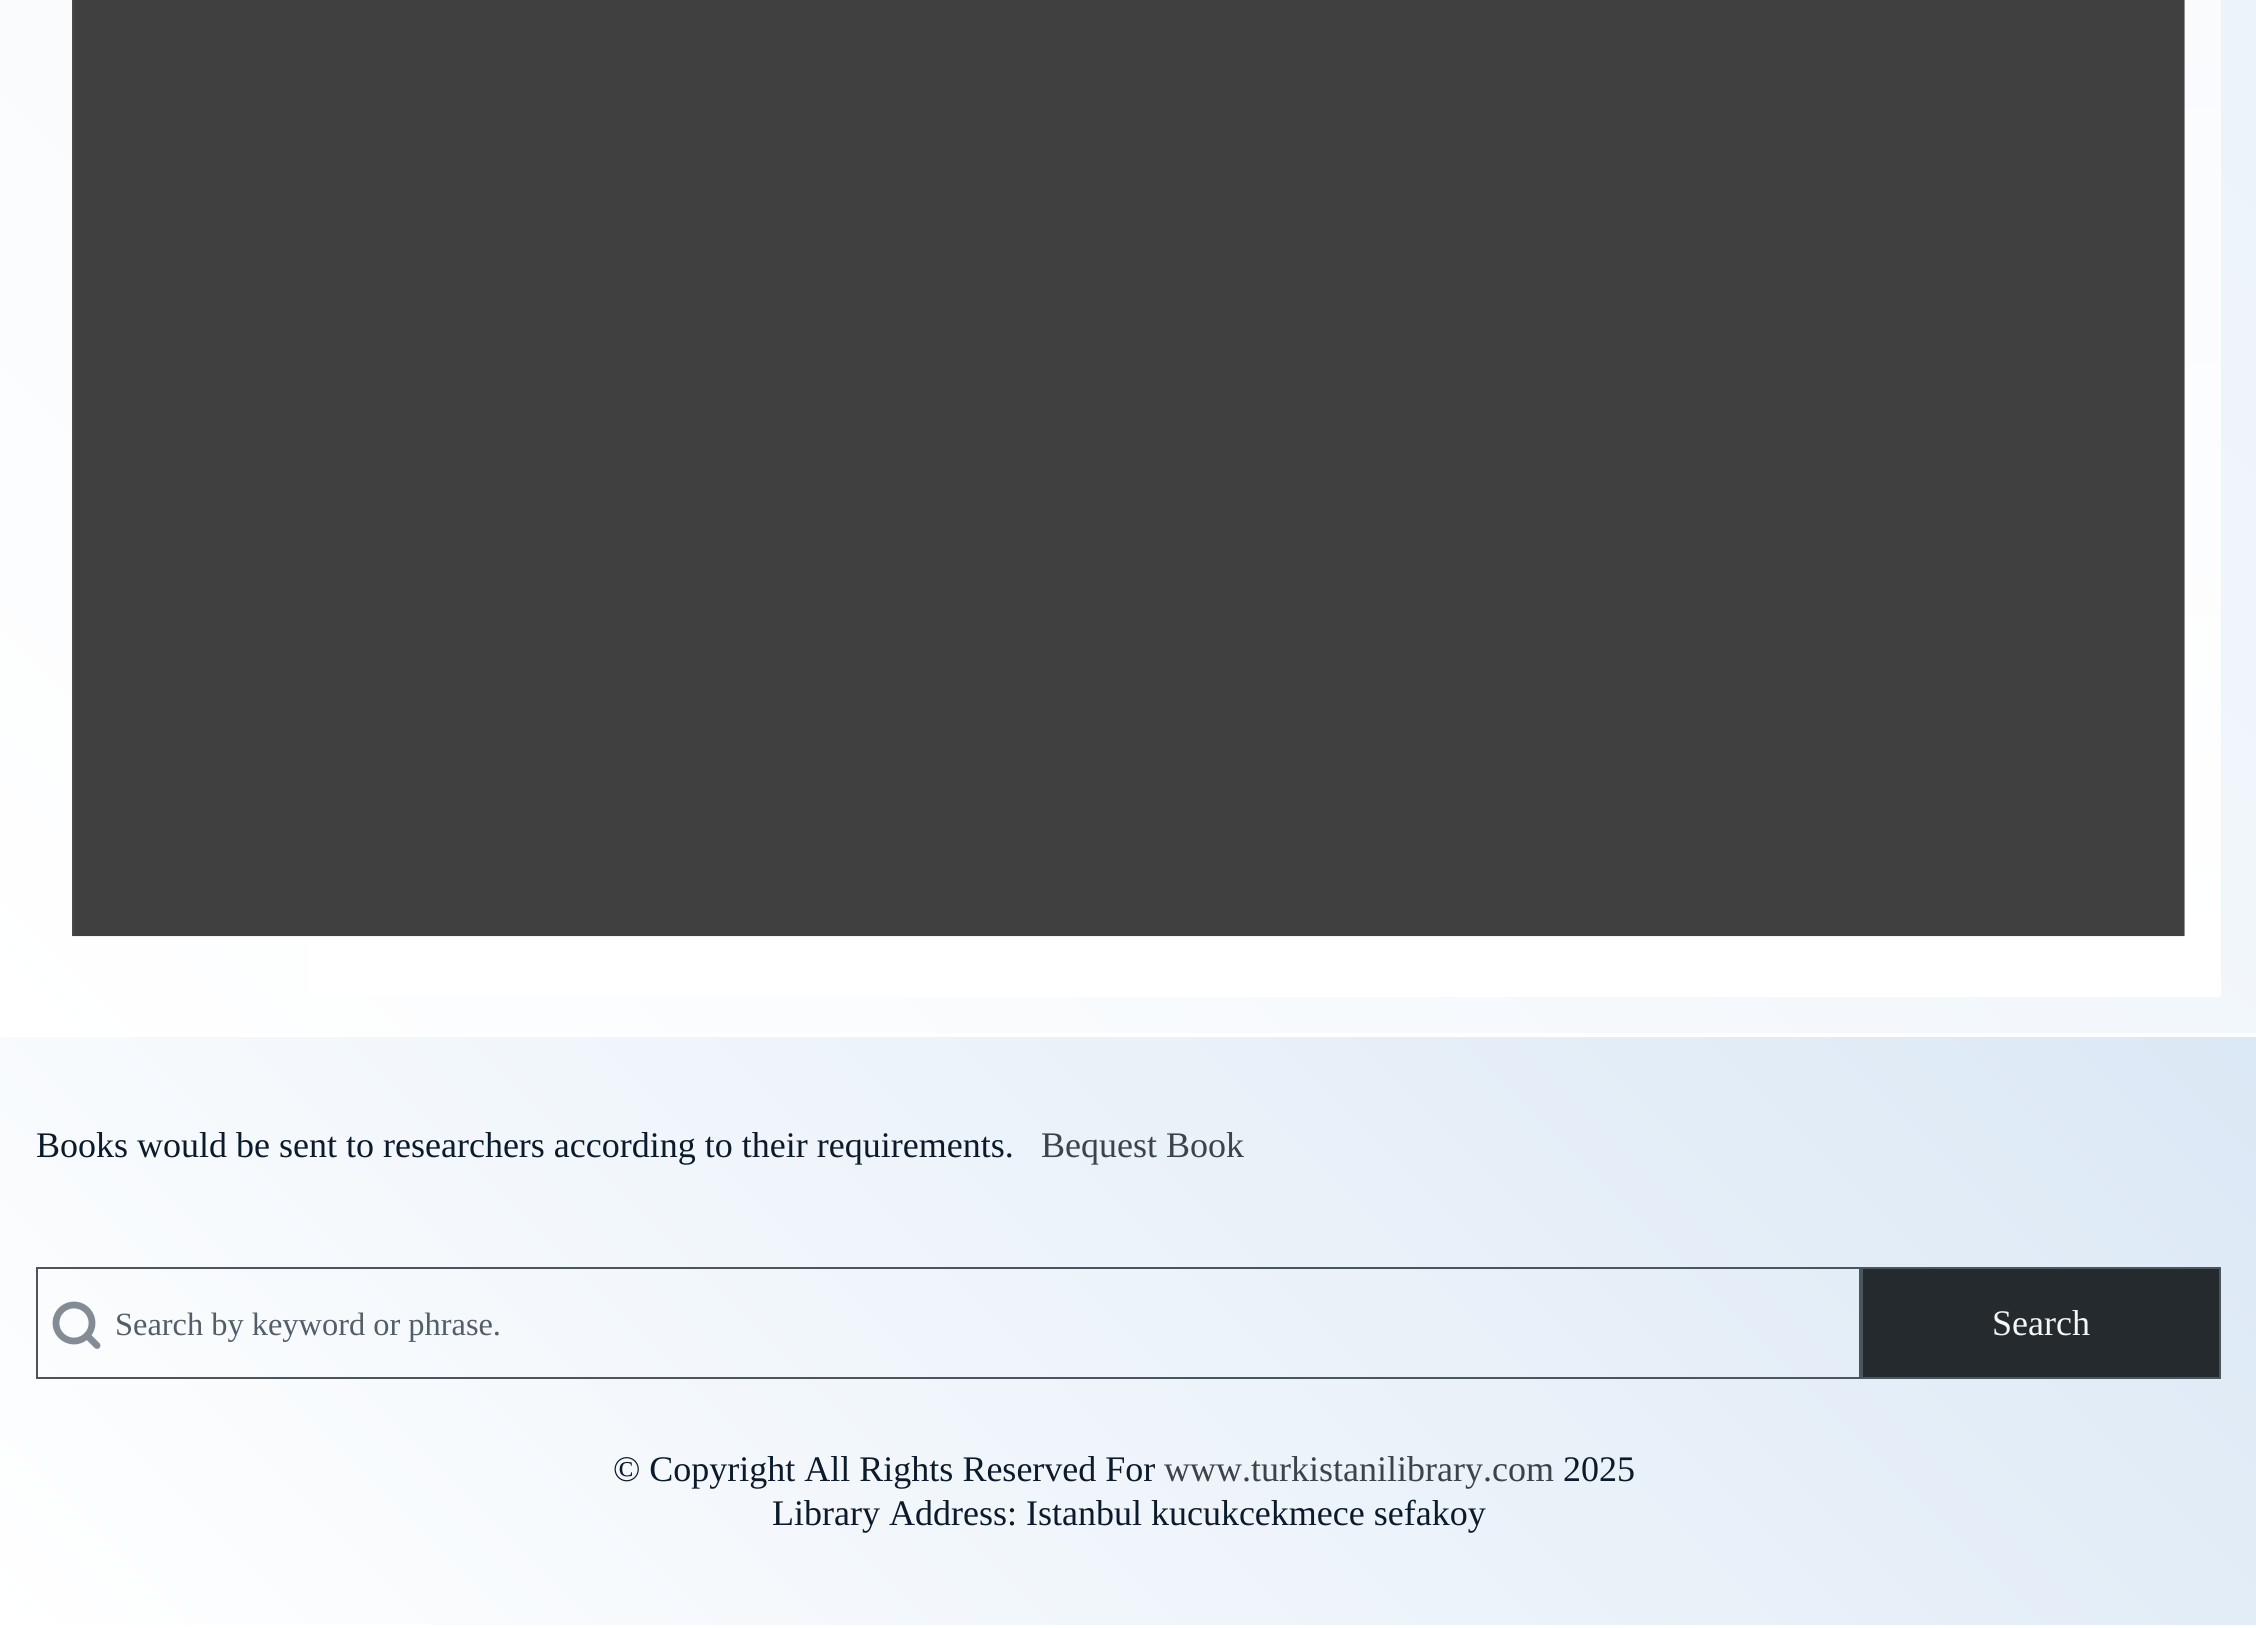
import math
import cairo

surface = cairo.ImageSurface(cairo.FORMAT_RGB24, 2256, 1628)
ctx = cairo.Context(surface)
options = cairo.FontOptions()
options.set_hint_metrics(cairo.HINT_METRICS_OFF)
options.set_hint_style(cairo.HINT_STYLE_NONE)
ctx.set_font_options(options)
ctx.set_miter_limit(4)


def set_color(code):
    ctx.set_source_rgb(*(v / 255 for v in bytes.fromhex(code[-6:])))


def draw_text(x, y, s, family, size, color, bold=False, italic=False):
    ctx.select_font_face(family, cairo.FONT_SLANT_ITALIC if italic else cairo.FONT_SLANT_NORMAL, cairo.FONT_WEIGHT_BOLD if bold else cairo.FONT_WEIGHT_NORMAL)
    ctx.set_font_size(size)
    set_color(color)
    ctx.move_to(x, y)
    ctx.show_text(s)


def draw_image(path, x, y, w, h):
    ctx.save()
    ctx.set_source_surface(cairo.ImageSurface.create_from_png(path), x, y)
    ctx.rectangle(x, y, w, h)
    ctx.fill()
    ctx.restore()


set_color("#ffffff")
ctx.paint()
gradient = cairo.LinearGradient(-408, 624, 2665, -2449)
gradient.add_color_stop_rgba(0, 1, 1, 1, 1)
gradient.add_color_stop_rgba(1, 0.859, 0.91, 0.961, 1)
ctx.set_source(gradient)
ctx.rectangle(0, 0, 2256, 1033)
ctx.fill()
gradient = cairo.LinearGradient(1128, 997, 1128, -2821)
gradient.add_color_stop_rgba(0, 1, 1, 1, 1)
gradient.add_color_stop_rgba(1, 0.91, 0.941, 0.976, 1)
ctx.set_source(gradient)
ctx.rectangle(309, 0, 1912, 997)
ctx.fill()
draw_image("assets/img1.png", 72, 0, 2113, 937)
gradient = cairo.LinearGradient(417, 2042, 1839, 620)
gradient.add_color_stop_rgba(0, 1, 1, 1, 1)
gradient.add_color_stop_rgba(1, 0.859, 0.91, 0.961, 1)
ctx.set_source(gradient)
ctx.rectangle(0, 1037, 2256, 588)
ctx.fill()
draw_text(36, 1157, "Books would be sent to researchers according to their requirements.", "Liberation Serif", 36, "#0c1b2c")
draw_text(1041, 1157, "Bequest Book", "Liberation Serif", 36, "#3b444b")
ctx.rectangle(37, 1268, 1823, 110)
set_color("#4a555e")
ctx.stroke()
ctx.arc(74, 1323, 18, 0, 2 * math.pi)
set_color("#838c95")
ctx.set_line_width(6.8)
ctx.stroke()
ctx.new_path()
ctx.move_to(97, 1345.5)
ctx.line_to(87, 1335.5)
ctx.set_line_cap(cairo.LINE_CAP_ROUND)
ctx.set_line_join(cairo.LINE_JOIN_ROUND)
ctx.stroke()
draw_text(115, 1335, "Search by keyword or phrase.", "Liberation Serif", 32.4, "#535e6b")
set_color("#252a2e")
ctx.rectangle(1862, 1268, 358, 110)
ctx.fill_preserve()
set_color("#4a555e")
ctx.set_line_width(2)
ctx.set_line_cap(cairo.LINE_CAP_BUTT)
ctx.set_line_join(cairo.LINE_JOIN_MITER)
ctx.stroke()
draw_text(1992, 1335, "Search", "Liberation Serif", 36, "#f4f6f7")
draw_text(613, 1481, "© Copyright All Rights Reserved For", "Liberation Serif", 36, "#0c1b2c")
draw_text(1164, 1481, "www.turkistanilibrary.com", "Liberation Serif", 36, "#3b444b")
draw_text(1563, 1481, "2025", "Liberation Serif", 36, "#0c1b2c")
draw_text(772, 1525, "Library Address: Istanbul kucukcekmece sefakoy", "Liberation Serif", 36, "#0c1b2c")
surface.write_to_png("output.png")
